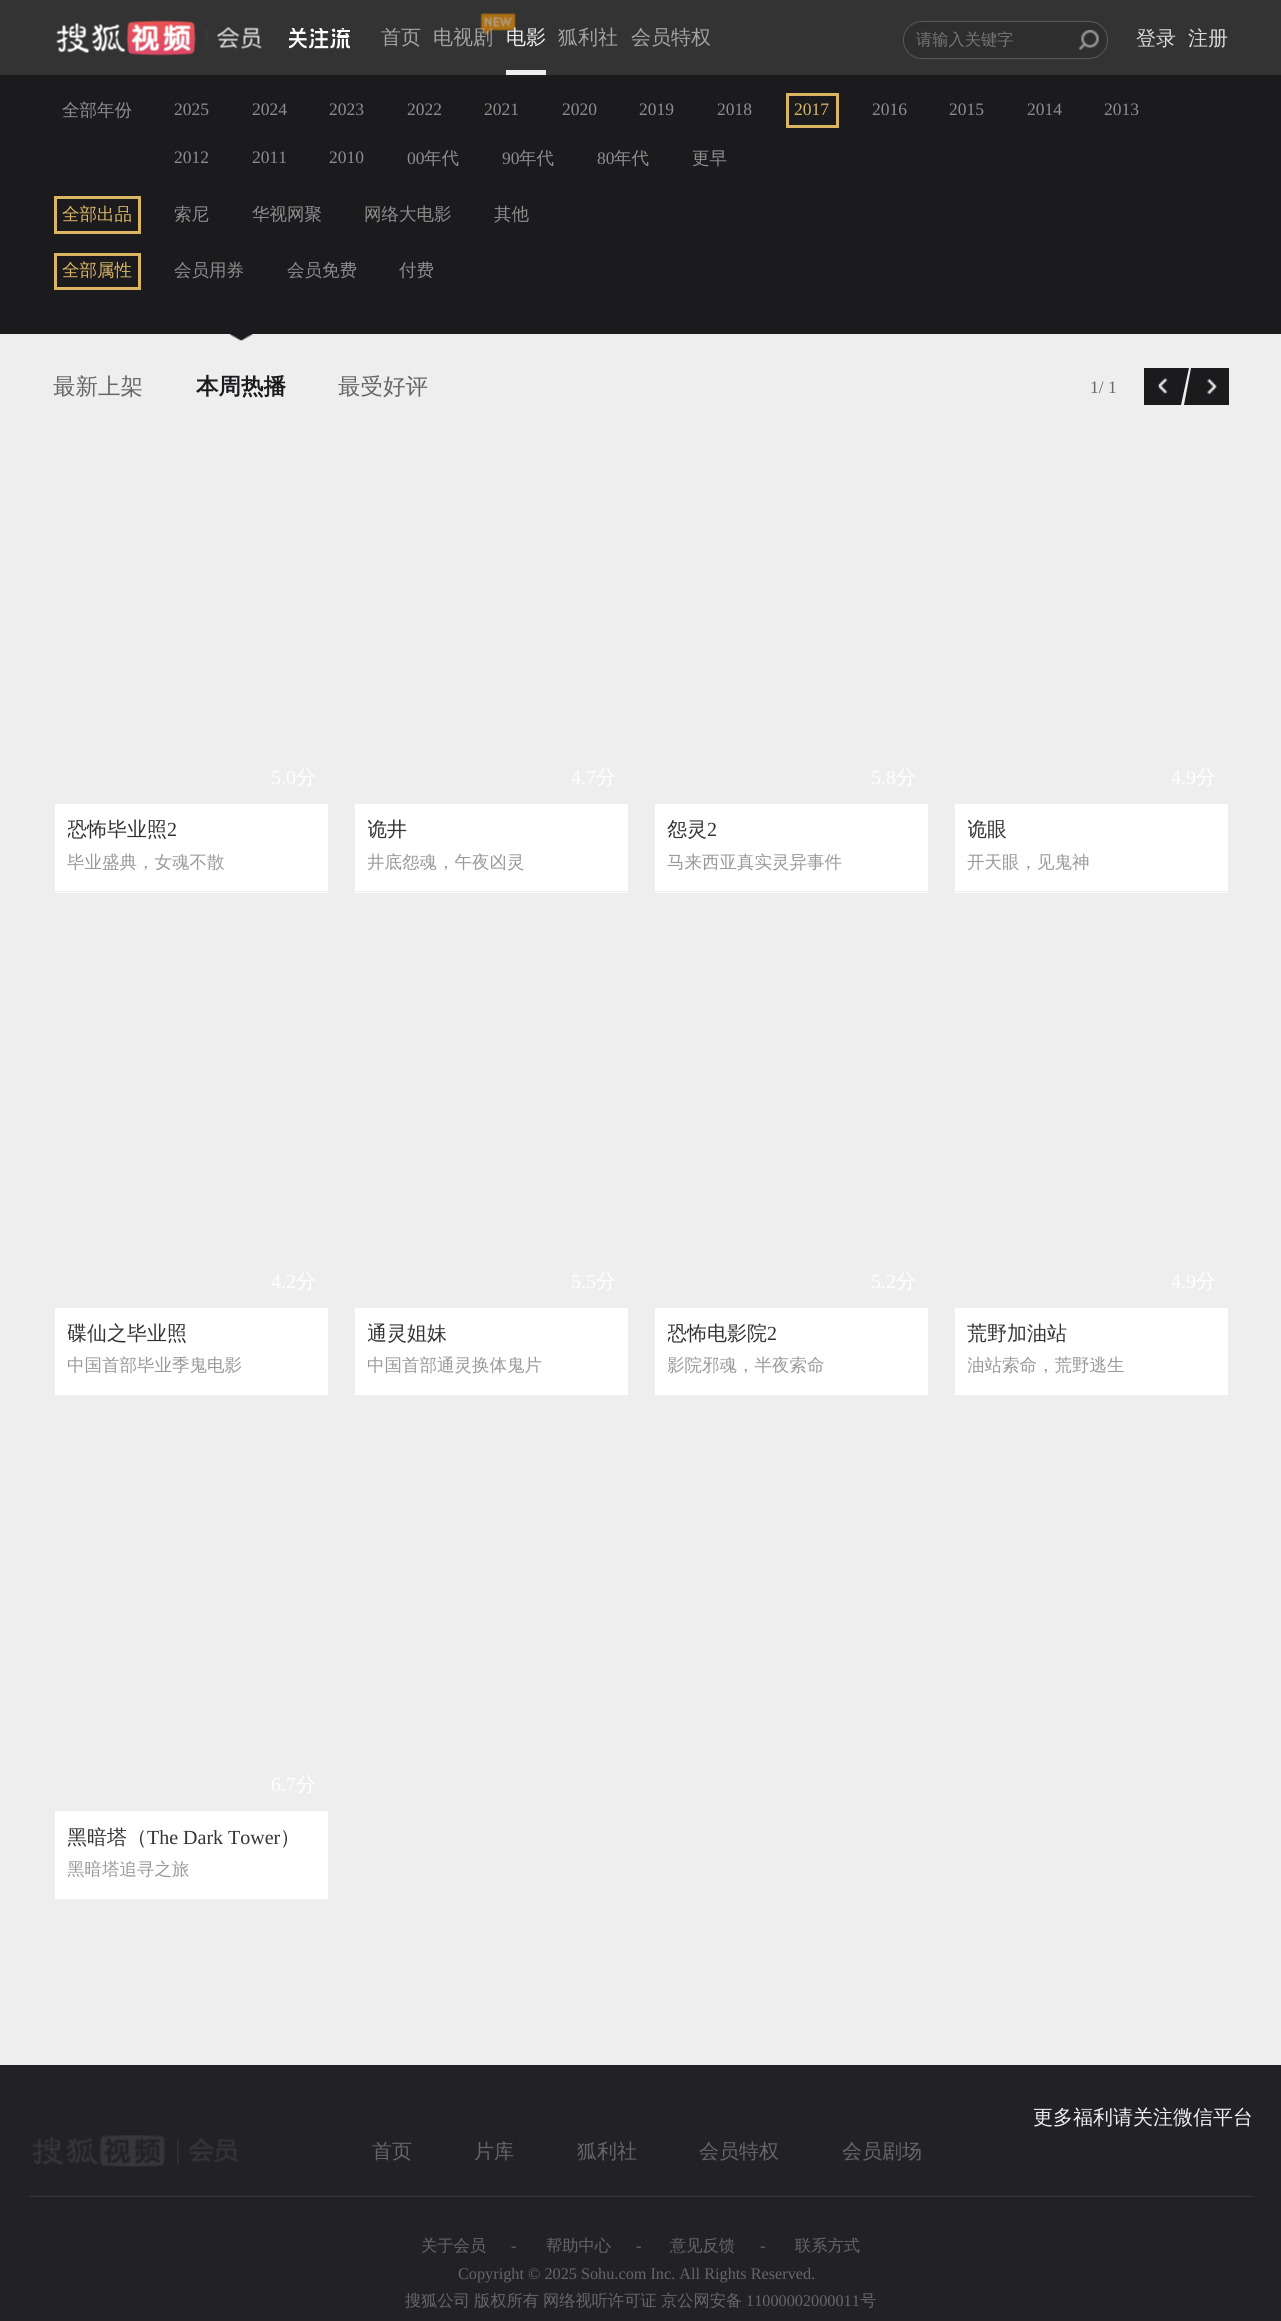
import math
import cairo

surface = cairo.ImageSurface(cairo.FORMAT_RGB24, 1281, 2321)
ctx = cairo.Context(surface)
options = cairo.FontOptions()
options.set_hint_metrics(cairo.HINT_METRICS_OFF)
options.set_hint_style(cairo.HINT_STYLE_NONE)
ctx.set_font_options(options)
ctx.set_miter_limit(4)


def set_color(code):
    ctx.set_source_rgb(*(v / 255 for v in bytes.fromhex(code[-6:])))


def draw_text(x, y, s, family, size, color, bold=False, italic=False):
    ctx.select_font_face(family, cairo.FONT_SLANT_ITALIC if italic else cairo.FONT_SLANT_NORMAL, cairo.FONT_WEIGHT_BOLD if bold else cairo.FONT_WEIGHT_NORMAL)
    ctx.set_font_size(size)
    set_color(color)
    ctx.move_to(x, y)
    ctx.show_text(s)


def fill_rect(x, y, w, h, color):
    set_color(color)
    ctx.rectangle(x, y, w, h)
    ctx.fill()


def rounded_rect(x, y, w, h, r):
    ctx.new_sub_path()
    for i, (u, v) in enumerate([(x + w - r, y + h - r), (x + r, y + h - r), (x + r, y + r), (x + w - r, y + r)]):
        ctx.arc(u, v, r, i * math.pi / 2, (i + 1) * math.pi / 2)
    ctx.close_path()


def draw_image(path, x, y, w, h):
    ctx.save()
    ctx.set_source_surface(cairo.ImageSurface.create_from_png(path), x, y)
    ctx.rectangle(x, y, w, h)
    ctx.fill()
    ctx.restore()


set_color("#eeeeee")
ctx.paint()
fill_rect(0, 0, 1281, 75, "#333333")
draw_image("assets/img1.png", 56, 20, 206, 36)
draw_image("assets/img2.png", 289, 28, 61, 21)
draw_text(381, 44, "首页", "WenQuanYi Zen Hei Medium", 20, "#a3a3a3")
draw_text(433, 44, "电视剧", "WenQuanYi Zen Hei Medium", 20, "#a3a3a3")
draw_image("assets/img3.png", 480, 13, 36, 23)
fill_rect(506, 70, 40, 5, "#eeeeee")
draw_text(506, 44, "电影", "WenQuanYi Zen Hei Medium", 20, "#eeeeee")
draw_text(558, 44, "狐利社", "WenQuanYi Zen Hei Medium", 20, "#a3a3a3")
draw_text(631, 44, "会员特权", "WenQuanYi Zen Hei Medium", 20, "#a3a3a3")
set_color("#2e2e2e")
rounded_rect(903.5, 21.5, 204, 37, 18.5)
ctx.fill_preserve()
set_color("#585858")
ctx.set_line_width(1)
ctx.stroke()
draw_text(916, 45, "请输入关键字", "WenQuanYi Zen Hei Medium", 16.25, "#757575")
draw_image("assets/img4.png", 1078, 30, 21, 20)
draw_text(1136, 45, "登录", "WenQuanYi Zen Hei Medium", 20, "#dbdbdb")
draw_text(1188, 45, "注册", "WenQuanYi Zen Hei Medium", 20, "#dbdbdb")
fill_rect(0, 75, 1281, 259, "#1b1b1e")
draw_text(62, 116, "全部年份", "WenQuanYi Zen Hei Medium", 17.5, "#8d8d8d")
draw_text(174, 115, "2025", "Liberation Serif", 17.5, "#8d8d8d")
draw_text(252, 115, "2024", "Liberation Serif", 17.5, "#8d8d8d")
draw_text(329, 115, "2023", "Liberation Serif", 17.5, "#8d8d8d")
draw_text(407, 115, "2022", "Liberation Serif", 17.5, "#8d8d8d")
draw_text(484, 115, "2021", "Liberation Serif", 17.5, "#8d8d8d")
draw_text(562, 115, "2020", "Liberation Serif", 17.5, "#8d8d8d")
draw_text(639, 115, "2019", "Liberation Serif", 17.5, "#8d8d8d")
draw_text(717, 115, "2018", "Liberation Serif", 17.5, "#8d8d8d")
ctx.rectangle(787.5, 94.5, 50, 32)
set_color("#dab564")
ctx.set_line_width(3)
ctx.stroke()
draw_text(794, 115, "2017", "Liberation Serif", 17.5, "#dab564")
draw_text(872, 115, "2016", "Liberation Serif", 17.5, "#8d8d8d")
draw_text(949, 115, "2015", "Liberation Serif", 17.5, "#8d8d8d")
draw_text(1027, 115, "2014", "Liberation Serif", 17.5, "#8d8d8d")
draw_text(1104, 115, "2013", "Liberation Serif", 17.5, "#8d8d8d")
draw_text(174, 163, "2012", "Liberation Serif", 17.5, "#8d8d8d")
draw_text(252, 163, "2011", "Liberation Serif", 17.5, "#8d8d8d")
draw_text(329, 163, "2010", "Liberation Serif", 17.5, "#8d8d8d")
draw_text(407, 164, "00", "Liberation Serif", 17.5, "#8d8d8d")
draw_text(424, 164, "年代", "WenQuanYi Zen Hei Medium", 17.5, "#8d8d8d")
draw_text(502, 164, "90", "Liberation Serif", 17.5, "#8d8d8d")
draw_text(519, 164, "年代", "WenQuanYi Zen Hei Medium", 17.5, "#8d8d8d")
draw_text(597, 164, "80", "Liberation Serif", 17.5, "#8d8d8d")
draw_text(614, 164, "年代", "WenQuanYi Zen Hei Medium", 17.5, "#8d8d8d")
draw_text(692, 164, "更早", "WenQuanYi Zen Hei Medium", 17.5, "#8d8d8d")
ctx.rectangle(55.5, 197.5, 84, 35)
set_color("#dab564")
ctx.stroke()
draw_text(62, 220, "全部出品", "WenQuanYi Zen Hei Medium", 17.5, "#dab564")
draw_text(174, 220, "索尼", "WenQuanYi Zen Hei Medium", 17.5, "#8d8d8d")
draw_text(252, 220, "华视网聚", "WenQuanYi Zen Hei Medium", 17.5, "#8d8d8d")
draw_text(364, 220, "网络大电影", "WenQuanYi Zen Hei Medium", 17.5, "#8d8d8d")
draw_text(494, 220, "其他", "WenQuanYi Zen Hei Medium", 17.5, "#8d8d8d")
ctx.rectangle(55.5, 254.5, 84, 34)
set_color("#dab564")
ctx.stroke()
draw_text(62, 276, "全部属性", "WenQuanYi Zen Hei Medium", 17.5, "#dab564")
draw_text(174, 276, "会员用券", "WenQuanYi Zen Hei Medium", 17.5, "#8d8d8d")
draw_text(287, 276, "会员免费", "WenQuanYi Zen Hei Medium", 17.5, "#8d8d8d")
draw_text(399, 276, "付费", "WenQuanYi Zen Hei Medium", 17.5, "#8d8d8d")
draw_text(53, 394, "最新上架", "WenQuanYi Zen Hei Medium", 22.5, "#666666")
draw_image("assets/img5.png", 230, 334, 23, 7)
draw_text(196, 394, "本周热播", "WenQuanYi Zen Hei", 22.5, "#1b1b1e", bold=True)
draw_text(338, 394, "最受好评", "WenQuanYi Zen Hei Medium", 22.5, "#666666")
draw_text(1090, 393, "1/ 1", "Liberation Serif", 17.5, "#666666")
set_color("#1b1b1e")
ctx.new_path()
ctx.move_to(1144, 368)
ctx.line_to(1189, 368)
ctx.line_to(1181, 405)
ctx.line_to(1144, 405)
ctx.close_path()
ctx.fill()
draw_image("assets/img6.png", 1158, 377, 10, 18)
ctx.new_path()
ctx.move_to(1229, 405)
ctx.line_to(1184, 405)
ctx.line_to(1191, 368)
ctx.line_to(1229, 368)
ctx.close_path()
ctx.fill()
draw_image("assets/img7.png", 1207, 378, 10, 17)
draw_text(271, 784, "5.0", "Liberation Serif", 20, "#ffffff")
draw_text(296, 784, "分", "WenQuanYi Zen Hei Medium", 20, "#ffffff")
fill_rect(55, 804, 273, 89, "#ffffff")
fill_rect(54, 891, 275, 1, "#eeeeee")
ctx.save()
ctx.rectangle(68, 816, 247, 28)
ctx.clip()
draw_text(67, 836, "恐怖毕业照", "WenQuanYi Zen Hei Medium", 20, "#333333")
ctx.restore()
draw_text(167, 836, "2", "Liberation Serif", 20, "#333333")
draw_text(67, 868, "毕业盛典，女魂不散", "WenQuanYi Zen Hei Medium", 17.5, "#999999")
draw_text(571, 784, "4.7", "Liberation Serif", 20, "#ffffff")
draw_text(596, 784, "分", "WenQuanYi Zen Hei Medium", 20, "#ffffff")
fill_rect(355, 804, 273, 89, "#ffffff")
fill_rect(354, 891, 275, 1, "#eeeeee")
ctx.save()
ctx.rectangle(368, 816, 247, 28)
ctx.clip()
draw_text(367, 836, "诡井", "WenQuanYi Zen Hei Medium", 20, "#333333")
ctx.restore()
ctx.save()
ctx.rectangle(368, 844, 247, 37)
ctx.clip()
draw_text(367, 868, "井底怨魂，午夜凶灵", "WenQuanYi Zen Hei Medium", 17.5, "#999999")
ctx.restore()
draw_text(871, 784, "5.8", "Liberation Serif", 20, "#ffffff")
draw_text(896, 784, "分", "WenQuanYi Zen Hei Medium", 20, "#ffffff")
fill_rect(655, 804, 273, 89, "#ffffff")
fill_rect(654, 891, 275, 1, "#eeeeee")
draw_text(667, 836, "怨灵", "WenQuanYi Zen Hei Medium", 20, "#333333")
draw_text(707, 836, "2", "Liberation Serif", 20, "#333333")
draw_text(667, 868, "马来西亚真实灵异事件", "WenQuanYi Zen Hei Medium", 17.5, "#999999")
draw_text(1171, 784, "4.9", "Liberation Serif", 20, "#ffffff")
draw_text(1196, 784, "分", "WenQuanYi Zen Hei Medium", 20, "#ffffff")
fill_rect(955, 804, 273, 89, "#ffffff")
fill_rect(954, 891, 275, 1, "#eeeeee")
ctx.save()
ctx.rectangle(968, 816, 247, 28)
ctx.clip()
draw_text(967, 836, "诡眼", "WenQuanYi Zen Hei Medium", 20, "#333333")
ctx.restore()
draw_text(967, 868, "开天眼，见鬼神", "WenQuanYi Zen Hei Medium", 17.5, "#999999")
draw_text(271, 1288, "4.2", "Liberation Serif", 20, "#ffffff")
draw_text(296, 1288, "分", "WenQuanYi Zen Hei Medium", 20, "#ffffff")
fill_rect(55, 1308, 273, 87, "#ffffff")
ctx.save()
ctx.rectangle(68, 1320, 247, 28)
ctx.clip()
draw_text(67, 1340, "碟仙之毕业照", "WenQuanYi Zen Hei Medium", 20, "#333333")
ctx.restore()
ctx.save()
ctx.rectangle(68, 1348, 247, 37)
ctx.clip()
draw_text(67, 1371, "中国首部毕业季鬼电影", "WenQuanYi Zen Hei Medium", 17.5, "#999999")
ctx.restore()
draw_text(571, 1288, "5.5", "Liberation Serif", 20, "#ffffff")
draw_text(596, 1288, "分", "WenQuanYi Zen Hei Medium", 20, "#ffffff")
fill_rect(355, 1308, 273, 87, "#ffffff")
ctx.save()
ctx.rectangle(368, 1320, 247, 28)
ctx.clip()
draw_text(367, 1340, "通灵姐妹", "WenQuanYi Zen Hei Medium", 20, "#333333")
ctx.restore()
ctx.save()
ctx.rectangle(368, 1348, 247, 37)
ctx.clip()
draw_text(367, 1371, "中国首部通灵换体鬼片", "WenQuanYi Zen Hei Medium", 17.5, "#999999")
ctx.restore()
draw_text(871, 1288, "5.2", "Liberation Serif", 20, "#ffffff")
draw_text(896, 1288, "分", "WenQuanYi Zen Hei Medium", 20, "#ffffff")
fill_rect(655, 1308, 273, 87, "#ffffff")
ctx.save()
ctx.rectangle(668, 1320, 247, 28)
ctx.clip()
draw_text(667, 1340, "恐怖电影院", "WenQuanYi Zen Hei Medium", 20, "#333333")
ctx.restore()
draw_text(767, 1340, "2", "Liberation Serif", 20, "#333333")
ctx.save()
ctx.rectangle(668, 1348, 247, 37)
ctx.clip()
draw_text(667, 1371, "影院邪魂，半夜索命", "WenQuanYi Zen Hei Medium", 17.5, "#999999")
ctx.restore()
draw_text(1171, 1288, "4.9", "Liberation Serif", 20, "#ffffff")
draw_text(1196, 1288, "分", "WenQuanYi Zen Hei Medium", 20, "#ffffff")
fill_rect(955, 1308, 273, 87, "#ffffff")
draw_text(967, 1340, "荒野加油站", "WenQuanYi Zen Hei Medium", 20, "#333333")
ctx.save()
ctx.rectangle(968, 1348, 247, 37)
ctx.clip()
draw_text(967, 1371, "油站索命，荒野逃生", "WenQuanYi Zen Hei Medium", 17.5, "#999999")
ctx.restore()
draw_text(271, 1791, "6.7", "Liberation Serif", 20, "#ffffff")
draw_text(296, 1791, "分", "WenQuanYi Zen Hei Medium", 20, "#ffffff")
fill_rect(55, 1811, 273, 88, "#ffffff")
ctx.save()
ctx.rectangle(68, 1824, 247, 27)
ctx.clip()
draw_text(67, 1844, "黑暗塔（", "WenQuanYi Zen Hei Medium", 20, "#333333")
ctx.restore()
draw_text(147, 1844, "The Dark Tower", "Liberation Serif", 20, "#333333")
draw_text(280, 1844, "）", "WenQuanYi Zen Hei Medium", 20, "#333333")
ctx.save()
ctx.rectangle(68, 1851, 247, 38)
ctx.clip()
draw_text(67, 1875, "黑暗塔追寻之旅", "WenQuanYi Zen Hei Medium", 17.5, "#999999")
ctx.restore()
fill_rect(0, 2065, 1281, 256, "#222226")
draw_image("assets/img8.png", 32, 2135, 206, 32)
fill_rect(29, 2196, 1225, 1, "#37373a")
draw_text(1033, 2124, "更多福利请关注微信平台", "WenQuanYi Zen Hei Medium", 20, "#eeeeee")
draw_text(372, 2158, "首页", "WenQuanYi Zen Hei Medium", 20, "#666666")
draw_text(474, 2158, "片库", "WenQuanYi Zen Hei Medium", 20, "#666666")
draw_text(577, 2158, "狐利社", "WenQuanYi Zen Hei Medium", 20, "#666666")
draw_text(699, 2158, "会员特权", "WenQuanYi Zen Hei Medium", 20, "#666666")
draw_text(842, 2158, "会员剧场", "WenQuanYi Zen Hei Medium", 20, "#666666")
draw_text(421, 2251, "关于会员", "WenQuanYi Zen Hei Medium", 16.25, "#666666")
draw_text(511, 2251, "-", "Liberation Serif", 16.25, "#666666")
draw_text(546, 2251, "帮助中心", "WenQuanYi Zen Hei Medium", 16.25, "#666666")
draw_text(636, 2251, "-", "Liberation Serif", 16.25, "#666666")
draw_text(670, 2251, "意见反馈", "WenQuanYi Zen Hei Medium", 16.25, "#666666")
draw_text(760, 2251, "-", "Liberation Serif", 16.25, "#666666")
draw_text(795, 2251, "联系方式", "WenQuanYi Zen Hei Medium", 16.25, "#666666")
draw_text(458, 2279, "Copyright © 2025 Sohu.com Inc. All Rights Reserved.", "Liberation Serif", 16.25, "#666666")
draw_text(405, 2306, "搜狐公司", "WenQuanYi Zen Hei Medium", 16.25, "#666666")
draw_text(474, 2306, "版权所有", "WenQuanYi Zen Hei Medium", 16.25, "#666666")
draw_text(543, 2306, "网络视听许可证", "WenQuanYi Zen Hei Medium", 16.25, "#666666")
draw_text(661, 2306, "京公网安备", "WenQuanYi Zen Hei Medium", 16.25, "#666666")
draw_text(746, 2306, "11000002000011", "Liberation Serif", 16.25, "#666666")
draw_text(860, 2306, "号", "WenQuanYi Zen Hei Medium", 16.25, "#666666")
surface.write_to_png("output.png")
